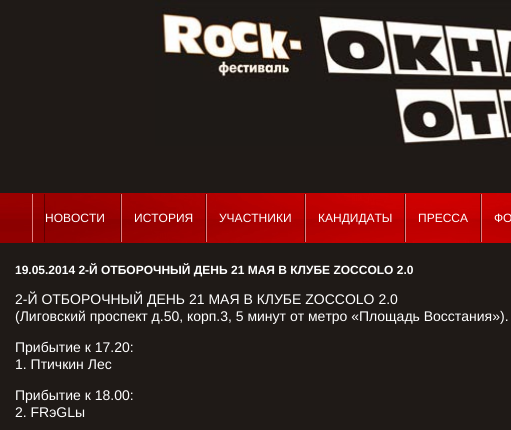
import math
import cairo

surface = cairo.ImageSurface(cairo.FORMAT_RGB24, 511, 430)
ctx = cairo.Context(surface)
options = cairo.FontOptions()
options.set_hint_metrics(cairo.HINT_METRICS_OFF)
options.set_hint_style(cairo.HINT_STYLE_NONE)
ctx.set_font_options(options)
ctx.set_miter_limit(4)


def set_color(code):
    ctx.set_source_rgb(*(v / 255 for v in bytes.fromhex(code[-6:])))


def draw_text(x, y, s, family, size, color, bold=False, italic=False):
    ctx.select_font_face(family, cairo.FONT_SLANT_ITALIC if italic else cairo.FONT_SLANT_NORMAL, cairo.FONT_WEIGHT_BOLD if bold else cairo.FONT_WEIGHT_NORMAL)
    ctx.set_font_size(size)
    set_color(color)
    ctx.move_to(x, y)
    ctx.show_text(s)


def fill_rect(x, y, w, h, color):
    set_color(color)
    ctx.rectangle(x, y, w, h)
    ctx.fill()


def draw_image(path, x, y, w, h):
    ctx.save()
    ctx.set_source_surface(cairo.ImageSurface.create_from_png(path), x, y)
    ctx.rectangle(x, y, w, h)
    ctx.fill()
    ctx.restore()


set_color("#1f1a17")
ctx.paint()
draw_image("assets/img1.png", 155, 0, 356, 146)
draw_image("assets/img2.png", 0, 193, 511, 50)
draw_text(45, 222, "НОВОСТИ", "Liberation Sans", 12, "#ffffff")
fill_rect(44, 194, 1, 48, "#610000")
fill_rect(32, 194, 1, 48, "#e08080")
draw_text(134, 222, "ИСТОРИЯ", "Liberation Sans", 12, "#ffffff")
fill_rect(120, 194, 1, 48, "#610000")
fill_rect(205, 194, 1, 48, "#610000")
fill_rect(121, 194, 1, 48, "#e08080")
draw_text(219, 222, "УЧАСТНИКИ", "Liberation Sans", 12, "#ffffff")
fill_rect(304, 194, 1, 48, "#610000")
fill_rect(206, 194, 1, 48, "#e08080")
fill_rect(305, 194, 1, 48, "#e08080")
draw_text(318, 222, "КАНДИДАТЫ", "Liberation Sans", 12, "#ffffff")
fill_rect(404, 194, 1, 48, "#610000")
draw_text(418, 222, "ПРЕССА", "Liberation Sans", 12, "#ffffff")
fill_rect(480, 194, 1, 48, "#610000")
fill_rect(405, 194, 1, 48, "#e08080")
draw_text(494, 222, "ФО", "Liberation Sans", 12, "#ffffff")
fill_rect(481, 194, 1, 48, "#e08080")
draw_text(15, 274, "19.05.2014 2-Й ОТБОРОЧНЫЙ ДЕНЬ 21 МАЯ В КЛУБЕ ZOCCOLO 2.0", "Liberation Sans", 12, "#ffffff", bold=True)
draw_text(15, 304, "2-Й ОТБОРОЧНЫЙ ДЕНЬ 21 МАЯ В КЛУБЕ ZOCCOLO 2.0", "Liberation Sans", 14, "#ffffff")
draw_text(15, 321, "(Лиговский проспект д.50, корп.3, 5 минут от метро «Площадь Восстания»).", "Liberation Sans", 14, "#ffffff")
draw_text(15, 352, "Прибытие к 17.20:", "Liberation Sans", 14, "#ffffff")
draw_text(15, 369, "1. Птичкин Лес", "Liberation Sans", 14, "#ffffff")
draw_text(15, 400, "Прибытие к 18.00:", "Liberation Sans", 14, "#ffffff")
draw_text(15, 417, "2. FRэGLы", "Liberation Sans", 14, "#ffffff")
surface.write_to_png("output.png")
